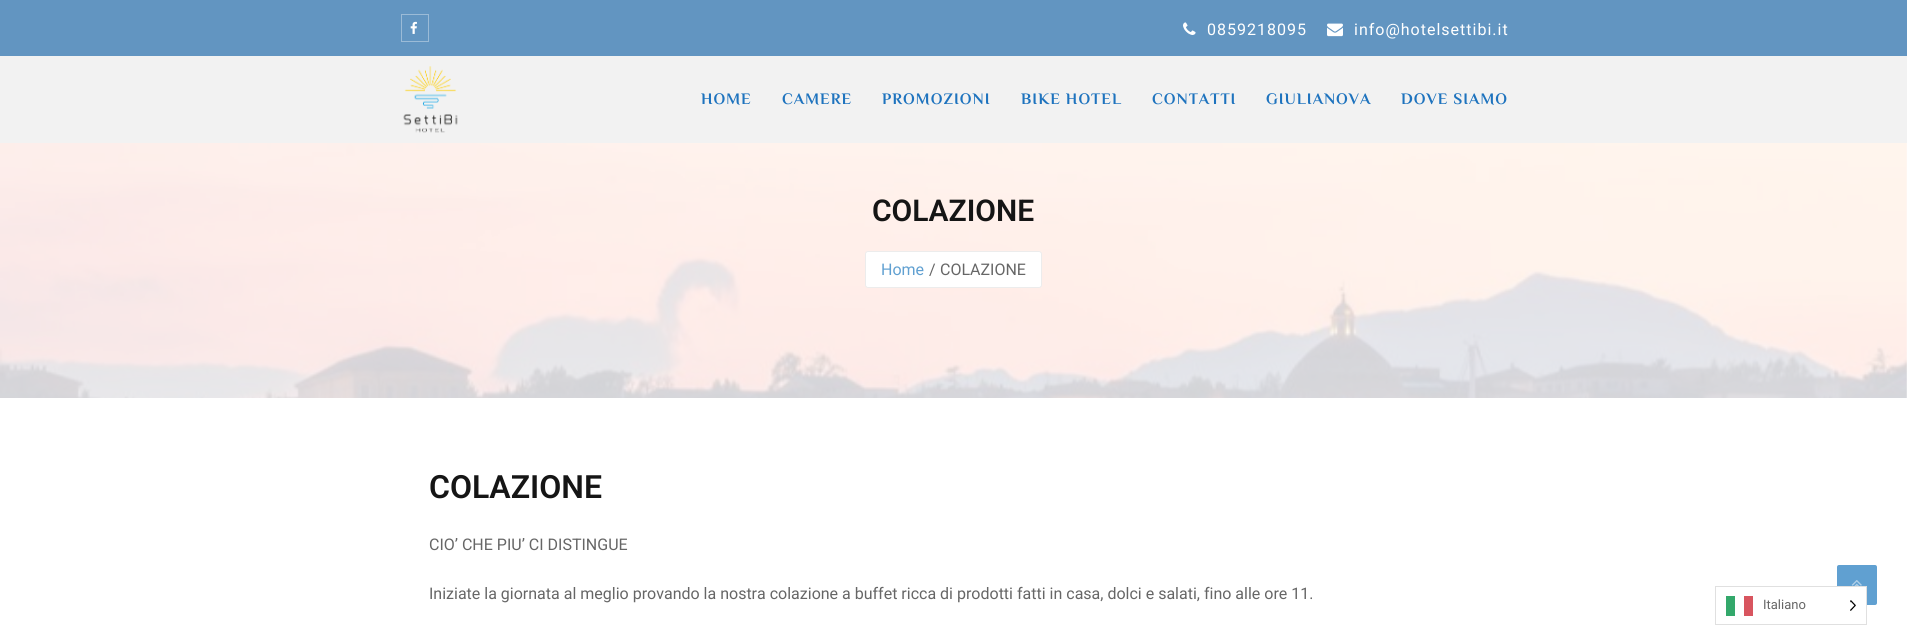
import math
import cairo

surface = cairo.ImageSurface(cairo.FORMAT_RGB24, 1907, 625)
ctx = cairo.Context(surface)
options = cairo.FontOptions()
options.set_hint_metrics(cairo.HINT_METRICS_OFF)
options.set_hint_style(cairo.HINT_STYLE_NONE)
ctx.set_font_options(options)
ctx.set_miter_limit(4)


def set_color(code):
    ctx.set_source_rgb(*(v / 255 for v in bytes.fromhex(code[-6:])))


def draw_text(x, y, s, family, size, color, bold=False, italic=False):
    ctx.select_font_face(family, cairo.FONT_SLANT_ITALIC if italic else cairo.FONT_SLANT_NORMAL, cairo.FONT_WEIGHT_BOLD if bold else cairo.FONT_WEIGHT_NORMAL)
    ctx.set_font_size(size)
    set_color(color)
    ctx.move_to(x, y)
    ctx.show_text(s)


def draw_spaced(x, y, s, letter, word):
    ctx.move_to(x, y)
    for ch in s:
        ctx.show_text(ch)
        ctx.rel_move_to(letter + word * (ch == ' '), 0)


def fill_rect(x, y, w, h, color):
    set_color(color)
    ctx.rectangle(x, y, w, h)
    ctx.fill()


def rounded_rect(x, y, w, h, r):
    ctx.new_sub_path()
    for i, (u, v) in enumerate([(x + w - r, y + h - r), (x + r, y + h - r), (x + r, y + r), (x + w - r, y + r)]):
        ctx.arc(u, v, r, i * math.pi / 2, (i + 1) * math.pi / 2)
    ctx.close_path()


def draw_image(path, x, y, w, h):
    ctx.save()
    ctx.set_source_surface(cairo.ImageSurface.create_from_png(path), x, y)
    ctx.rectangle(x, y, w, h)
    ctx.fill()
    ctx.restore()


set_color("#ffffff")
ctx.paint()
fill_rect(0, 0, 1907, 56, "#6295c1")
ctx.rectangle(401.5, 14.5, 27, 27)
set_color("#9bbbd7")
ctx.set_line_width(1)
ctx.stroke()
draw_image("assets/img1.png", 410, 21, 7, 13)
draw_image("assets/img2.png", 1183, 22, 13, 13)
ctx.select_font_face("Roboto")
ctx.set_font_size(16)
set_color("#ffffff")
draw_spaced(1207, 35, "0859218095", 1, 0)
draw_image("assets/img3.png", 1327, 23, 16, 14)
draw_spaced(1354, 35, "info@hotelsettibi.it", 1, 0)
fill_rect(0, 56, 1907, 87, "#f2f2f2")
draw_image("assets/img4.png", 403, 66, 55, 67)
ctx.select_font_face("Philosopher", cairo.FONT_SLANT_NORMAL, cairo.FONT_WEIGHT_BOLD)
set_color("#1e73be")
draw_spaced(701, 104, "HOME", 1, 0)
draw_spaced(782, 104, "CAMERE", 1, 0)
draw_spaced(882, 104, "PROMOZIONI", 1, 0)
draw_spaced(1021, 104, "BIKE HOTEL", 1, 0)
draw_spaced(1152, 104, "CONTATTI", 1, 0)
draw_spaced(1266, 104, "GIULIANOVA", 1, 0)
draw_spaced(1401, 104, "DOVE SIAMO", 1, 0)
draw_image("assets/img5.png", 0, 143, 1907, 255)
draw_text(872, 221, "COLAZIONE", "Roboto SemiBold", 30, "#151515")
set_color("#ffffff")
rounded_rect(865.5, 251.5, 176, 36, 2.5)
ctx.fill_preserve()
set_color("#ececec")
ctx.stroke()
draw_text(881, 275, "Home", "Roboto", 16, "#60a0d1")
draw_text(929, 275, "/", "Roboto", 16, "#666666")
draw_text(940, 275, "COLAZIONE", "Roboto", 16, "#666666")
draw_text(429, 498, "COLAZIONE", "Roboto SemiBold", 32, "#151515")
draw_text(429, 550, "CIO’ CHE PIU’ CI DISTINGUE", "Roboto", 16, "#666666")
draw_text(429, 599, "Iniziate la giornata al meglio provando la nostra colazione a buffet ricca di prodotti fatti in casa, dolci e salati, fino alle ore 11.", "Roboto", 16, "#666666")
set_color("#60a0d1")
rounded_rect(1837, 565, 40, 40, 2)
ctx.fill()
fill_rect(1837, 587, 29, 18, "#ffffff")
ctx.rectangle(1715.5, 586.5, 151, 38)
set_color("#e0e0e0")
ctx.stroke()
fill_rect(1726, 596, 9, 20, "#33a86b")
fill_rect(1744, 596, 9, 20, "#d8555f")
draw_text(1763, 609, "Italiano", "Roboto", 13, "#666666")
draw_image("assets/img6.png", 1850, 600, 6, 11)
draw_image("assets/img7.png", 1851, 580, 11, 6)
surface.write_to_png("output.png")
